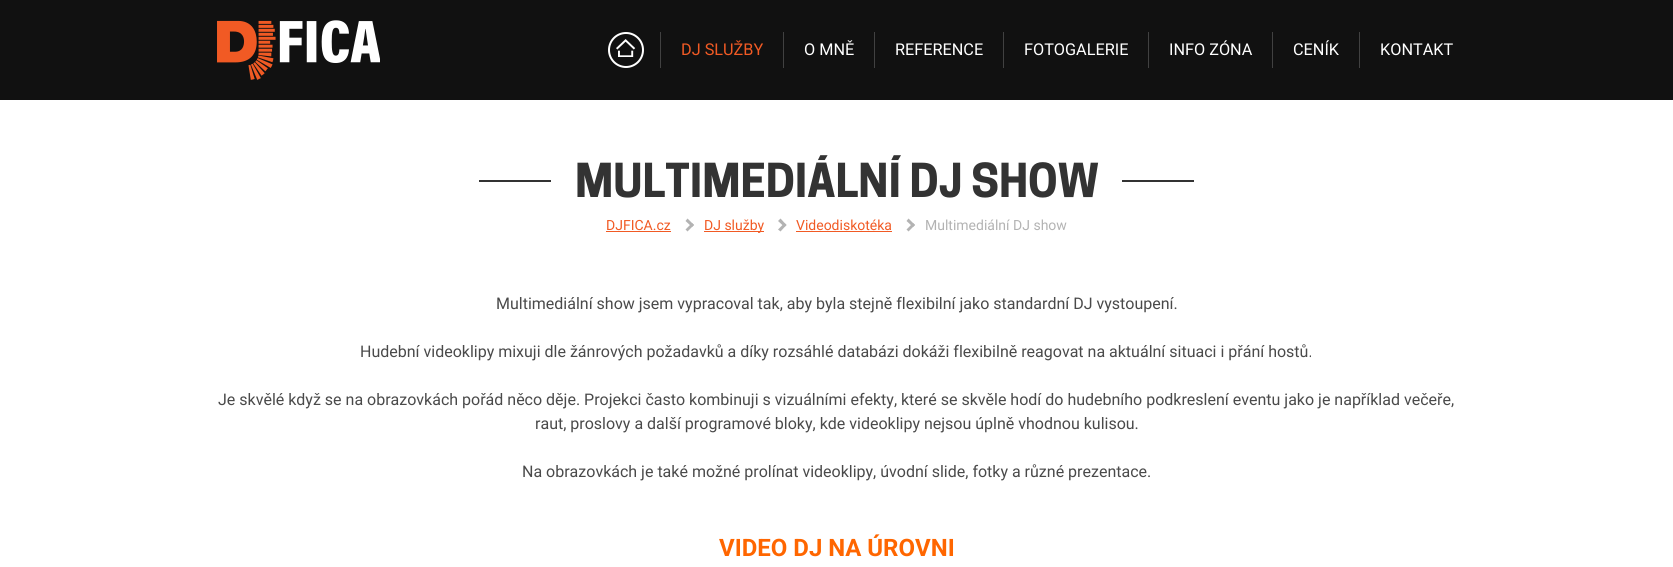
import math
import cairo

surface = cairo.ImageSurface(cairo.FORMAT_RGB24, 1673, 567)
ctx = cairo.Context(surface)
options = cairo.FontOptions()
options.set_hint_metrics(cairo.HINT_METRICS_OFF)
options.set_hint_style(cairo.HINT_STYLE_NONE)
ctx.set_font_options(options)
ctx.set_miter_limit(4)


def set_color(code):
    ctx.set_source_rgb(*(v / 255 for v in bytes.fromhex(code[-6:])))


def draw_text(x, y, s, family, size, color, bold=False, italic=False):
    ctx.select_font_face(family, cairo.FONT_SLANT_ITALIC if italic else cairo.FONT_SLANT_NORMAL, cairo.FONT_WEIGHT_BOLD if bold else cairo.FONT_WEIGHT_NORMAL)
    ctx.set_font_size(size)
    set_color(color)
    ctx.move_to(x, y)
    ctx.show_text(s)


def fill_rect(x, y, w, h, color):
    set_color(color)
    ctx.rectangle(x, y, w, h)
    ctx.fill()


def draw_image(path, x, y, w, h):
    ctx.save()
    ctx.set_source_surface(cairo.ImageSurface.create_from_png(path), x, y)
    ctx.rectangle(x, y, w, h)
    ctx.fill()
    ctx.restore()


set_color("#ffffff")
ctx.paint()
fill_rect(0, 0, 1673, 100, "#111111")
draw_image("assets/img1.png", 217, 20, 163, 60)
ctx.arc(626, 50, 17, 0, 2 * math.pi)
set_color("#ffffff")
ctx.stroke()
draw_image("assets/img2.png", 616, 39, 20, 18)
fill_rect(660, 32, 1, 36, "#414141")
draw_text(681, 55, "DJ SLUŽBY", "Roboto", 16.25, "#f15a24")
fill_rect(783, 32, 1, 36, "#414141")
draw_text(804, 55, "O MNĚ", "Roboto", 16.25, "#ffffff")
fill_rect(874, 32, 1, 36, "#414141")
draw_text(895, 55, "REFERENCE", "Roboto", 16.25, "#ffffff")
fill_rect(1003, 32, 1, 36, "#414141")
draw_text(1024, 55, "FOTOGALERIE", "Roboto", 16.25, "#ffffff")
fill_rect(1148, 32, 1, 36, "#414141")
draw_text(1169, 55, "INFO ZÓNA", "Roboto", 16.25, "#ffffff")
fill_rect(1272, 32, 1, 36, "#414141")
draw_text(1293, 55, "CENÍK", "Roboto", 16.25, "#ffffff")
fill_rect(1359, 32, 1, 36, "#414141")
draw_text(1380, 55, "KONTAKT", "Roboto", 16.25, "#ffffff")
fill_rect(479, 180, 72, 2, "#333333")
draw_text(575, 197, "MULTIMEDIÁLNÍ DJ SHOW", "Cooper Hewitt", 44, "#333333", bold=True)
fill_rect(1122, 180, 72, 2, "#333333")
draw_text(606, 230, "DJFICA.cz", "Roboto", 14, "#f15a24")
fill_rect(606, 231, 65, 1, "#f15a24")
set_color("#b3b3b3")
ctx.new_path()
ctx.move_to(685.5, 221)
ctx.line_to(687.5, 218.5)
ctx.line_to(694, 225)
ctx.line_to(692, 227)
ctx.close_path()
ctx.fill()
ctx.new_path()
ctx.move_to(685.5, 229.5)
ctx.line_to(692, 223)
ctx.line_to(694, 225)
ctx.line_to(687.5, 231.5)
ctx.close_path()
ctx.fill()
fill_rect(704, 231, 60, 1, "#f15a24")
draw_text(704, 230, "DJ služby", "Roboto", 14, "#f15a24")
set_color("#b3b3b3")
ctx.new_path()
ctx.move_to(778, 221)
ctx.line_to(780.5, 218.5)
ctx.line_to(786.5, 225)
ctx.line_to(784.5, 227)
ctx.close_path()
ctx.fill()
ctx.new_path()
ctx.move_to(778, 229.5)
ctx.line_to(784.5, 223)
ctx.line_to(786.5, 225)
ctx.line_to(780.5, 231.5)
ctx.close_path()
ctx.fill()
draw_text(796, 230, "Videodiskotéka", "Roboto", 14, "#f15a24")
fill_rect(796, 231, 96, 1, "#f15a24")
set_color("#b3b3b3")
ctx.new_path()
ctx.move_to(906.5, 221)
ctx.line_to(908.5, 218.5)
ctx.line_to(915, 225)
ctx.line_to(913, 227)
ctx.close_path()
ctx.fill()
ctx.new_path()
ctx.move_to(906.5, 229.5)
ctx.line_to(913, 223)
ctx.line_to(915, 225)
ctx.line_to(908.5, 231.5)
ctx.close_path()
ctx.fill()
draw_text(925, 230, "Multimediální DJ show", "Roboto", 14, "#b3b3b3")
draw_text(496, 309, "Multimediální show jsem vypracoval tak, aby byla stejně flexibilní jako standardní DJ vystoupení.", "Roboto", 16, "#4a4a4a")
draw_text(360, 357, "Hudební videoklipy mixuji dle žánrových požadavků a díky rozsáhlé databázi dokáži flexibilně reagovat na aktuální situaci i přání hostů.", "Roboto", 16, "#4a4a4a")
draw_text(218, 405, "Je skvělé když se na obrazovkách pořád něco děje. Projekci často kombinuji s vizuálními efekty, které se skvěle hodí do hudebního podkreslení eventu jako je například večeře,", "Roboto", 16, "#4a4a4a")
draw_text(535, 429, "raut, proslovy a další programové bloky, kde videoklipy nejsou úplně vhodnou kulisou.", "Roboto", 16, "#4a4a4a")
draw_text(522, 477, "Na obrazovkách je také možné prolínat videoklipy, úvodní slide, fotky a různé prezentace.", "Roboto", 16, "#4a4a4a")
draw_text(719, 556, "VIDEO DJ NA ÚROVNI", "Roboto", 24, "#ff6600", bold=True)
surface.write_to_png("output.png")
